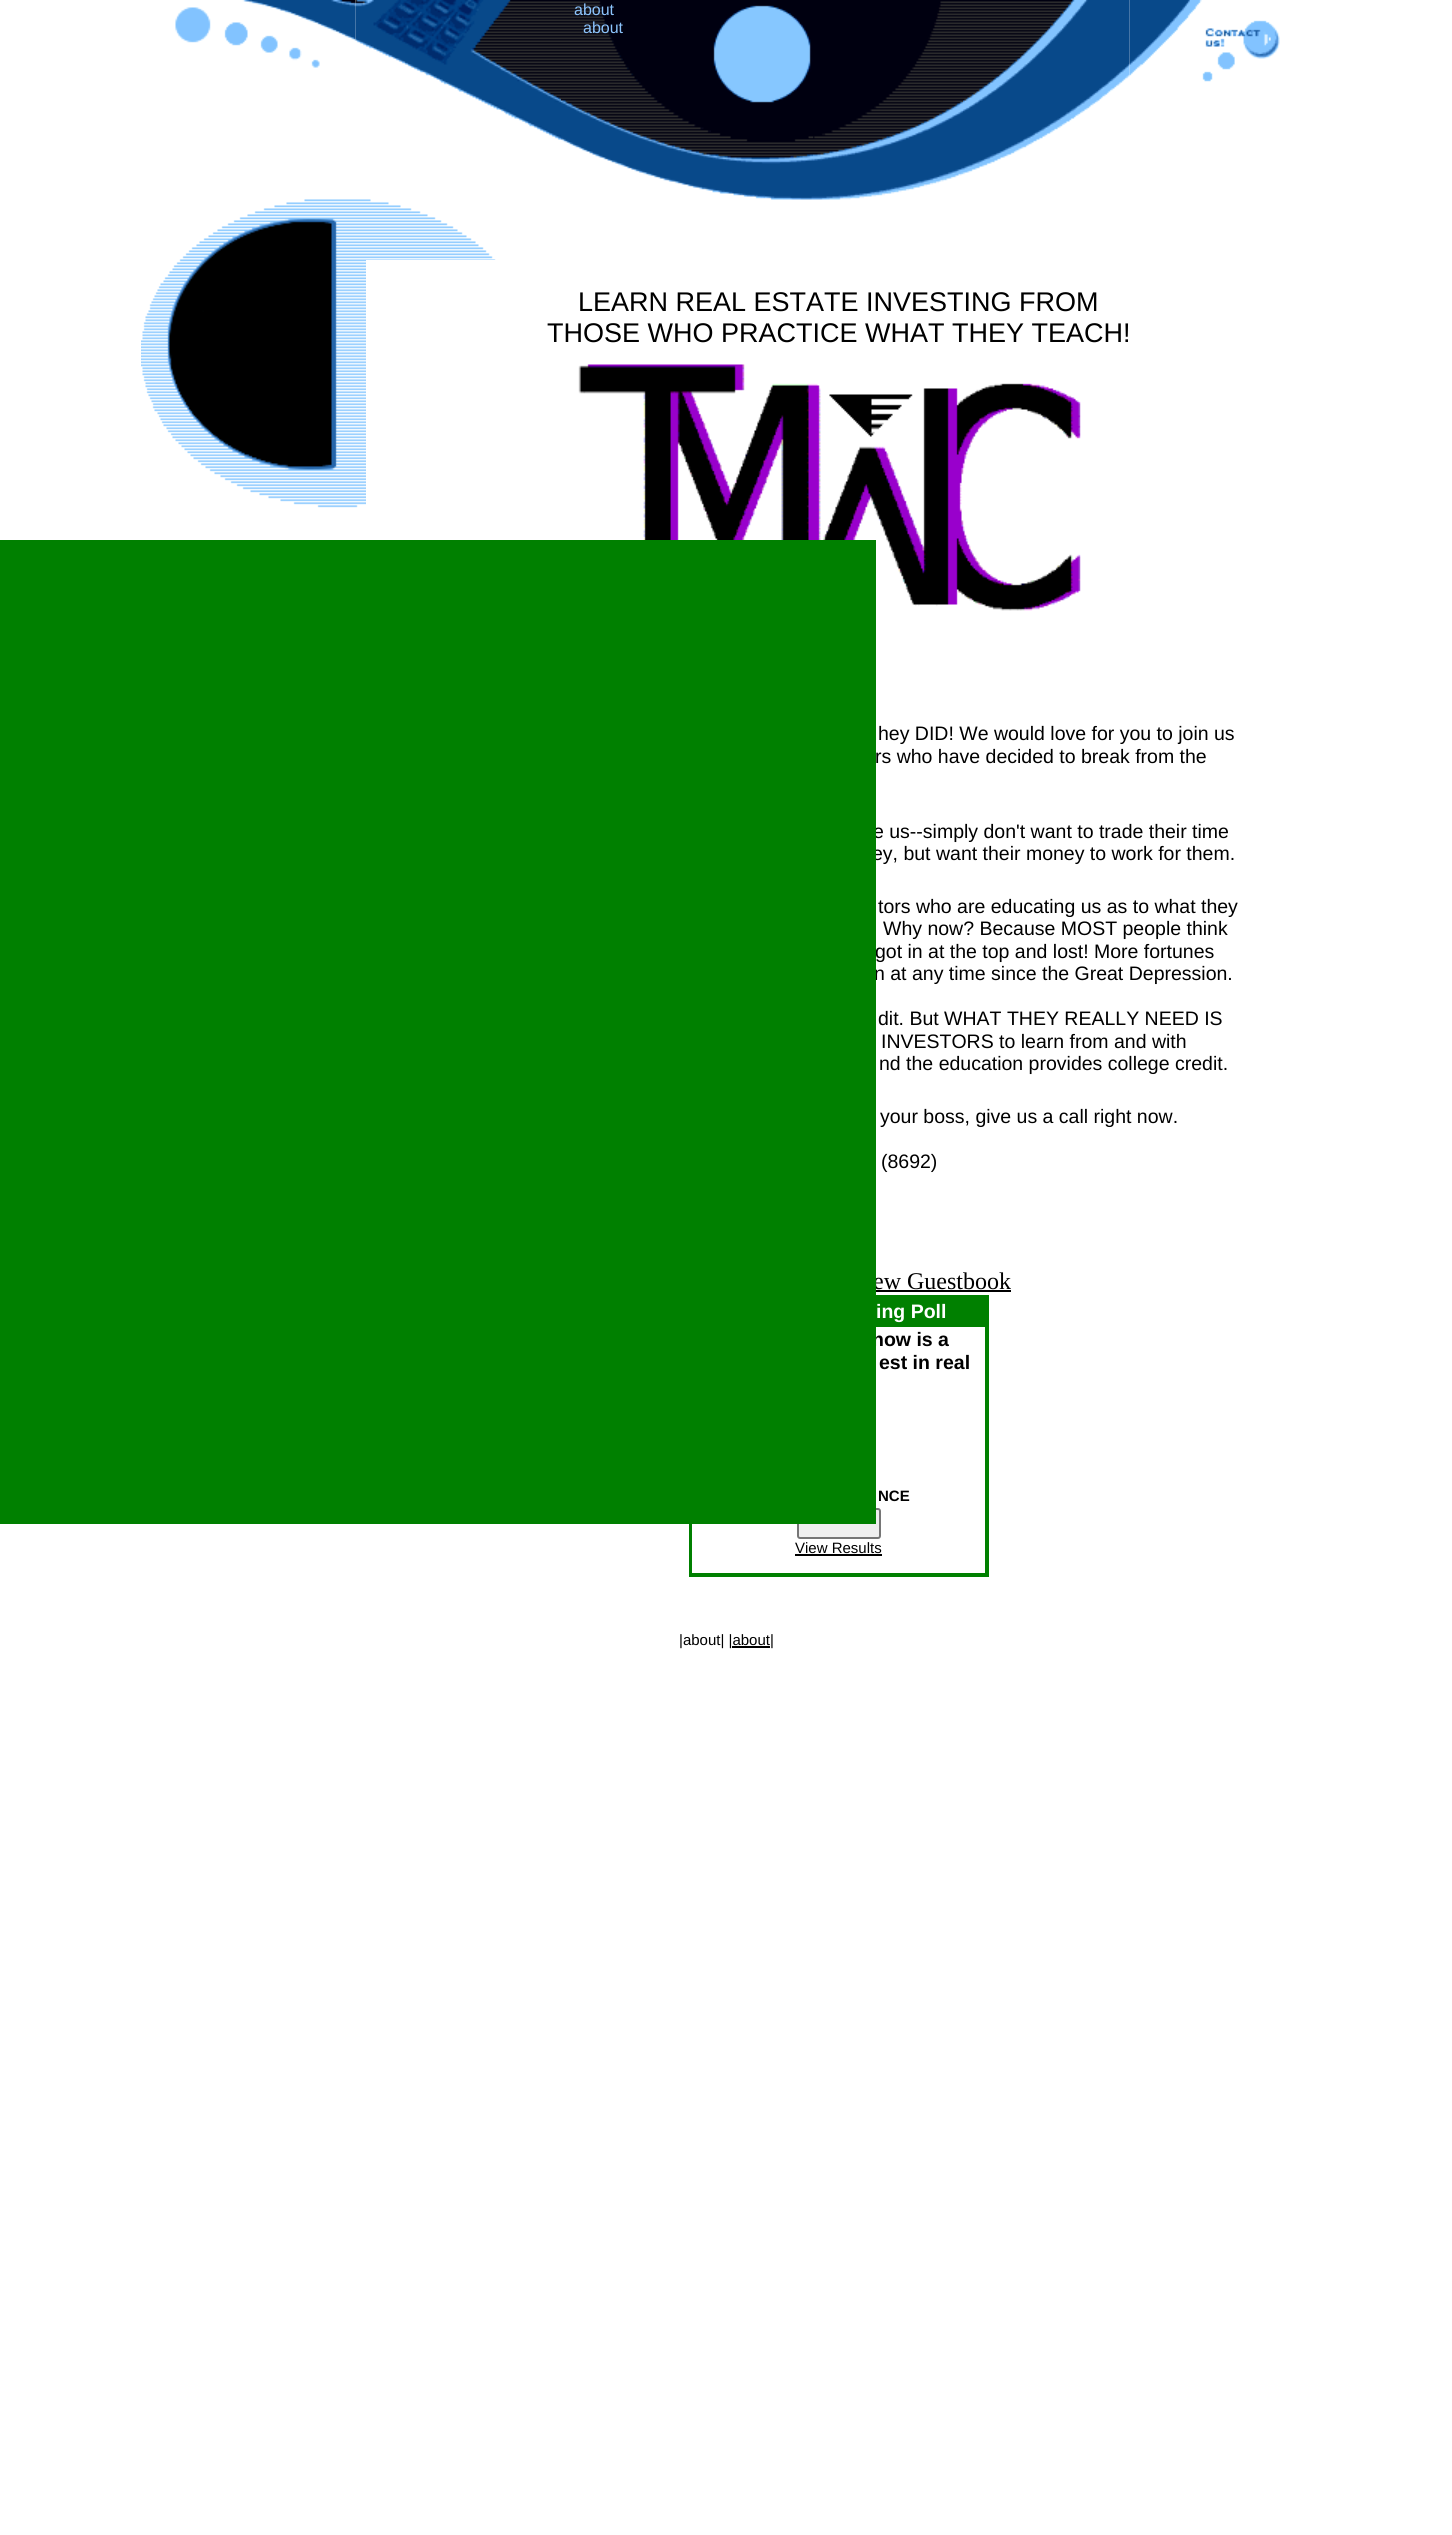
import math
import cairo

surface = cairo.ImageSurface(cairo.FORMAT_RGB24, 1452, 2535)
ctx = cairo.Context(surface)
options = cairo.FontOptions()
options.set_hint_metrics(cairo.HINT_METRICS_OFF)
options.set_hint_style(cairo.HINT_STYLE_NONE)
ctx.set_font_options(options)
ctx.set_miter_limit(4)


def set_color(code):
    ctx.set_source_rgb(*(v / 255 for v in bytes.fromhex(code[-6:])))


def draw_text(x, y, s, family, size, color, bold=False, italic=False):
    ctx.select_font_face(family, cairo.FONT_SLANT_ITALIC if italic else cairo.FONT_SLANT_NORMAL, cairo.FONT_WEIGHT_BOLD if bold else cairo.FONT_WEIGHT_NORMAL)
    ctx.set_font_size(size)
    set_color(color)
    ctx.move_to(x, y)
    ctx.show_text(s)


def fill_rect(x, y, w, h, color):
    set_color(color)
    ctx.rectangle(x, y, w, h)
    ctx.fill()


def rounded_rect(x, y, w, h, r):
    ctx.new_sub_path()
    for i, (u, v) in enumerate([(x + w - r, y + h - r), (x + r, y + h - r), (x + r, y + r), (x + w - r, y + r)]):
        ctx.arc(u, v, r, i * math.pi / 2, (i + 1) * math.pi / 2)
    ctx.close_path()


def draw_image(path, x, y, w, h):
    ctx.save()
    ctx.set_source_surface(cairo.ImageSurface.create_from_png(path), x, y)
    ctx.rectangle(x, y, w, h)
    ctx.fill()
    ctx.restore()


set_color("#ffffff")
ctx.paint()
draw_image("assets/img9.png", 578, 364, 503, 247)
draw_text(873, 838, "e us--simply don't want to trade their time", "Liberation Sans", 19.5, "#000000")
draw_text(872, 860, "ey, but want their money to work for them.", "Liberation Sans", 19.5, "#000000")
draw_text(875, 958, "got in at the top and lost! More fortunes", "Liberation Sans", 19.5, "#000000")
draw_text(874, 980, "n at any time since the Great Depression.", "Liberation Sans", 19.5, "#000000")
draw_text(873, 1289, "ew Guestbook", "Liberation Serif", 24, "#000000")
fill_rect(689, 1295, 300, 282, "#008000")
fill_rect(692, 1327, 293, 246, "#ffffff")
draw_text(872, 1346, "now is a", "Liberation Sans", 19.5, "#000000", bold=True)
set_color("#efefef")
rounded_rect(798, 1509, 82, 29, 2)
ctx.fill_preserve()
set_color("#767676")
ctx.stroke()
fill_rect(0, 540, 876, 984, "#008000")
draw_image("assets/img1.png", 175, 0, 181, 68)
draw_image("assets/img2.png", 355, 0, 206, 140)
draw_image("assets/img3.png", 561, 0, 150, 191)
draw_text(574, 15, "about", "Liberation Sans", 16, "#8cc4fd")
draw_text(583, 33, "about", "Liberation Sans", 16, "#8cc4fd")
draw_image("assets/img4.png", 711, 0, 102, 200)
draw_image("assets/img5.png", 813, 0, 150, 200)
draw_image("assets/img6.png", 963, 0, 167, 175)
draw_image("assets/img7.png", 1129, 0, 151, 82)
draw_image("assets/img8.png", 141, 199, 355, 309)
fill_rect(366, 260, 130, 245, "#ffffff")
draw_text(578, 311, "LEARN REAL ESTATE INVESTING FROM", "Liberation Sans", 27, "#000000")
draw_text(547, 342, "THOSE WHO PRACTICE WHAT THEY TEACH!", "Liberation Sans", 27, "#000000")
draw_text(878, 740, "hey DID! We would love for you to join us", "Liberation Sans", 19.5, "#000000")
draw_text(875, 763, "rs who have decided to break from the", "Liberation Sans", 19.5, "#000000")
draw_text(878, 913, "tors who are educating us as to what they", "Liberation Sans", 19.5, "#000000")
draw_text(883, 935, "Why now? Because MOST people think", "Liberation Sans", 19.5, "#000000")
draw_text(878, 1025, "dit. But WHAT THEY REALLY NEED IS", "Liberation Sans", 19.5, "#000000")
draw_text(881, 1048, "INVESTORS to learn from and with", "Liberation Sans", 19.5, "#000000")
draw_text(879, 1070, "nd the education provides college credit.", "Liberation Sans", 19.5, "#000000")
draw_text(880, 1123, "your boss, give us a call right now.", "Liberation Sans", 19.5, "#000000")
draw_text(881, 1168, "(8692)", "Liberation Sans", 19.5, "#000000")
fill_rect(876, 1290, 135, 2, "#000000")
draw_text(876, 1318, "ing Poll", "Liberation Sans", 19.5, "#ffffff", bold=True)
draw_text(879, 1369, "est in real", "Liberation Sans", 19.5, "#000000", bold=True)
draw_text(878, 1501, "NCE", "Liberation Sans", 15, "#000000", bold=True)
draw_text(795, 1553, "View Results", "Liberation Sans", 15, "#000000")
fill_rect(795, 1554, 87, 2, "#000000")
draw_text(679, 1645, "|about| |about|", "Liberation Sans", 15, "#000000")
fill_rect(732, 1646, 38, 2, "#000000")
surface.write_to_png("output.png")
